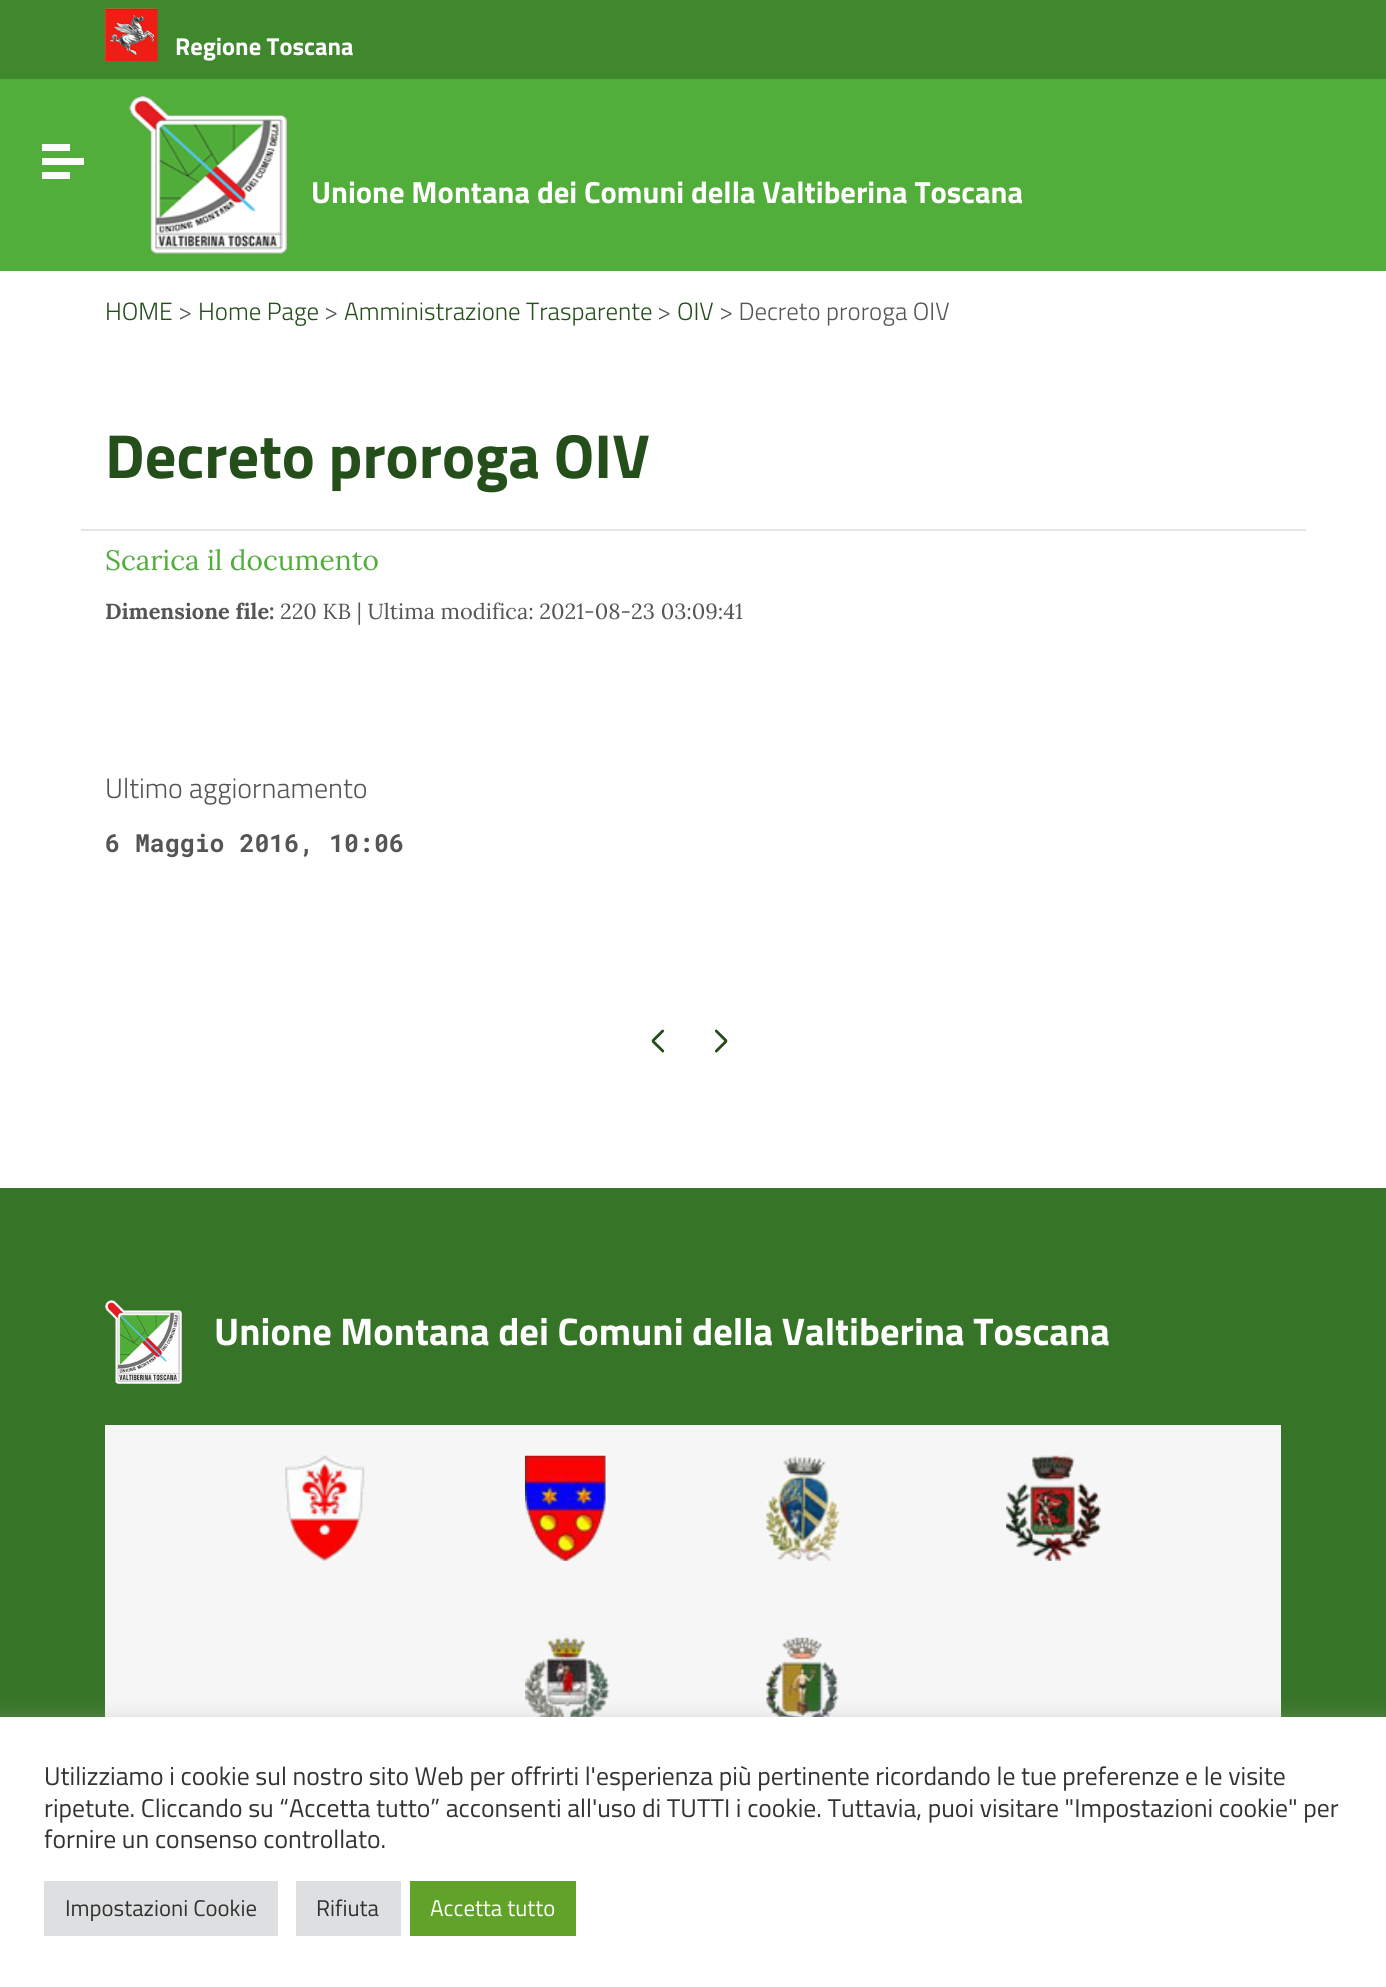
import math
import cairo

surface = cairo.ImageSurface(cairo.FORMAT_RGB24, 1386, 1987)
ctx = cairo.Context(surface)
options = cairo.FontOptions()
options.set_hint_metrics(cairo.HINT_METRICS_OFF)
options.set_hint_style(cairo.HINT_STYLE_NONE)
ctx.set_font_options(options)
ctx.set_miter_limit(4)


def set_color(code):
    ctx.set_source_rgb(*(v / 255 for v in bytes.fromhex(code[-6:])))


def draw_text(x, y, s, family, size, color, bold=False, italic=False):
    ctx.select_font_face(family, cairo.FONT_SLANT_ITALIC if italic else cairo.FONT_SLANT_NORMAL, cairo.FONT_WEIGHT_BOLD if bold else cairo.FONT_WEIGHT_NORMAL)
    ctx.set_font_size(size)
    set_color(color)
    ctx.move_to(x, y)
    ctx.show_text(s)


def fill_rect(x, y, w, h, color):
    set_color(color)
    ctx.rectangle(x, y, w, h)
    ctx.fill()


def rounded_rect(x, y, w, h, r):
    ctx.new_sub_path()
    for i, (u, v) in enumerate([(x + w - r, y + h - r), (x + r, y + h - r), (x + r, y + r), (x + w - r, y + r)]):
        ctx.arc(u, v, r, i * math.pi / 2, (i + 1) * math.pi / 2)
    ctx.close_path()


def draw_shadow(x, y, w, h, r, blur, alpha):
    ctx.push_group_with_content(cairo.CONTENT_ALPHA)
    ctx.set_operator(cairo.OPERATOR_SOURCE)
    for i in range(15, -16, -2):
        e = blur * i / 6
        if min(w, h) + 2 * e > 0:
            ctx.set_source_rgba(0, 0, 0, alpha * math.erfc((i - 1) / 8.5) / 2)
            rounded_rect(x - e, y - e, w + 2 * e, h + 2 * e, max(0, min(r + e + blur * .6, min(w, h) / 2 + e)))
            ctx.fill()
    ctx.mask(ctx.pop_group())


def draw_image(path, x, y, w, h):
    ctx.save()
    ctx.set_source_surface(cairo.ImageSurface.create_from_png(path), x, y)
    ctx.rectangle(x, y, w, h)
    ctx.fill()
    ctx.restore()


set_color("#ffffff")
ctx.paint()
fill_rect(0, 79, 1386, 192, "#51ae3a")
fill_rect(0, 0, 1386, 79, "#3f882d")
draw_image("assets/img1.png", 105, 8, 53, 53)
draw_text(175, 55, "Regione Toscana", "Titillium Web", 24.5, "#ffffff", bold=True)
fill_rect(42, 144, 28, 7, "#ffffff")
fill_rect(42, 158, 42, 7, "#ffffff")
fill_rect(42, 172, 28, 7, "#ffffff")
draw_image("assets/img2.png", 129, 96, 158, 158)
draw_text(311, 203, "Unione Montana dei Comuni della Valtiberina Toscana", "Titillium Web", 30.6, "#ffffff", bold=True)
draw_text(105, 320, "HOME", "Titillium Web Light", 24.9, "#244e1a")
draw_text(178, 320, ">", "Titillium Web Light", 24.9, "#555555")
draw_text(198, 320, "Home Page", "Titillium Web Light", 24.9, "#244e1a")
draw_text(324, 320, ">", "Titillium Web Light", 24.9, "#555555")
draw_text(344, 320, "Amministrazione Trasparente", "Titillium Web Light", 24.9, "#244e1a")
draw_text(657, 320, ">", "Titillium Web Light", 24.9, "#555555")
draw_text(677, 320, "OIV", "Titillium Web Light", 24.9, "#244e1a")
draw_text(719, 320, "> Decreto proroga OIV", "Titillium Web Light", 24.9, "#555555")
draw_text(105, 478, "Decreto proroga OIV", "Titillium Web", 62.25, "#244e1a", bold=True)
fill_rect(81, 529, 1225, 2, "#e5e5e5")
draw_text(105, 570, "Scarica il documento", "Lora", 28, "#51ae3a")
draw_text(105, 619, "Dimensione file:", "Lora", 21.75, "#555555", bold=True)
draw_text(280, 619, "220 KB | Ultima modifica: 2021-08-23 03:09:41", "Lora", 21.75, "#555555")
draw_text(105, 798, "Ultimo aggiornamento", "Titillium Web Light", 28, "#555555")
draw_text(105, 852, "6 Maggio 2016, 10:06", "Roboto Mono", 24.9, "#555555", bold=True)
draw_image("assets/img3.png", 651, 1029, 14, 24)
draw_image("assets/img4.png", 714, 1029, 14, 24)
fill_rect(0, 1188, 1386, 529, "#367527")
draw_image("assets/img5.png", 105, 1300, 77, 84)
draw_text(214, 1345, "Unione Montana dei Comuni della Valtiberina Toscana", "Titillium Web", 38.5, "#ffffff", bold=True)
fill_rect(105, 1425, 1176, 292, "#f5f6f5")
draw_image("assets/img6.png", 285, 1455, 80, 106)
draw_image("assets/img7.png", 525, 1455, 81, 106)
draw_image("assets/img8.png", 766, 1455, 75, 106)
draw_image("assets/img9.png", 1006, 1455, 95, 106)
draw_image("assets/img10.png", 525, 1637, 85, 80)
draw_image("assets/img11.png", 766, 1637, 73, 80)
set_color("#acabab")
draw_shadow(0, 1715, 1386, 271, 0, 9, 0.3)
fill_rect(0, 1717, 1386, 270, "#ffffff")
draw_text(44, 1785, "Utilizziamo i cookie sul nostro sito Web per offrirti l'esperienza più pertinente ricordando le tue preferenze e le visite", "Titillium Web", 25.67, "#333333")
draw_text(44, 1817, "ripetute. Cliccando su “Accetta tutto” acconsenti all'uso di TUTTI i cookie. Tuttavia, puoi visitare \"Impostazioni cookie\" per", "Titillium Web", 25.67, "#333333")
draw_text(44, 1848, "fornire un consenso controllato.", "Titillium Web", 25.67, "#333333")
fill_rect(44, 1881, 234, 55, "#dedfe0")
draw_text(65, 1916, "Impostazioni Cookie", "Titillium Web", 22.75, "#333333")
fill_rect(296, 1881, 105, 55, "#dedfe0")
draw_text(316, 1916, "Rifiuta", "Titillium Web", 22.75, "#333333")
fill_rect(410, 1881, 166, 55, "#61a229")
draw_text(430, 1916, "Accetta tutto", "Titillium Web", 22.75, "#ffffff")
surface.write_to_png("output.png")
